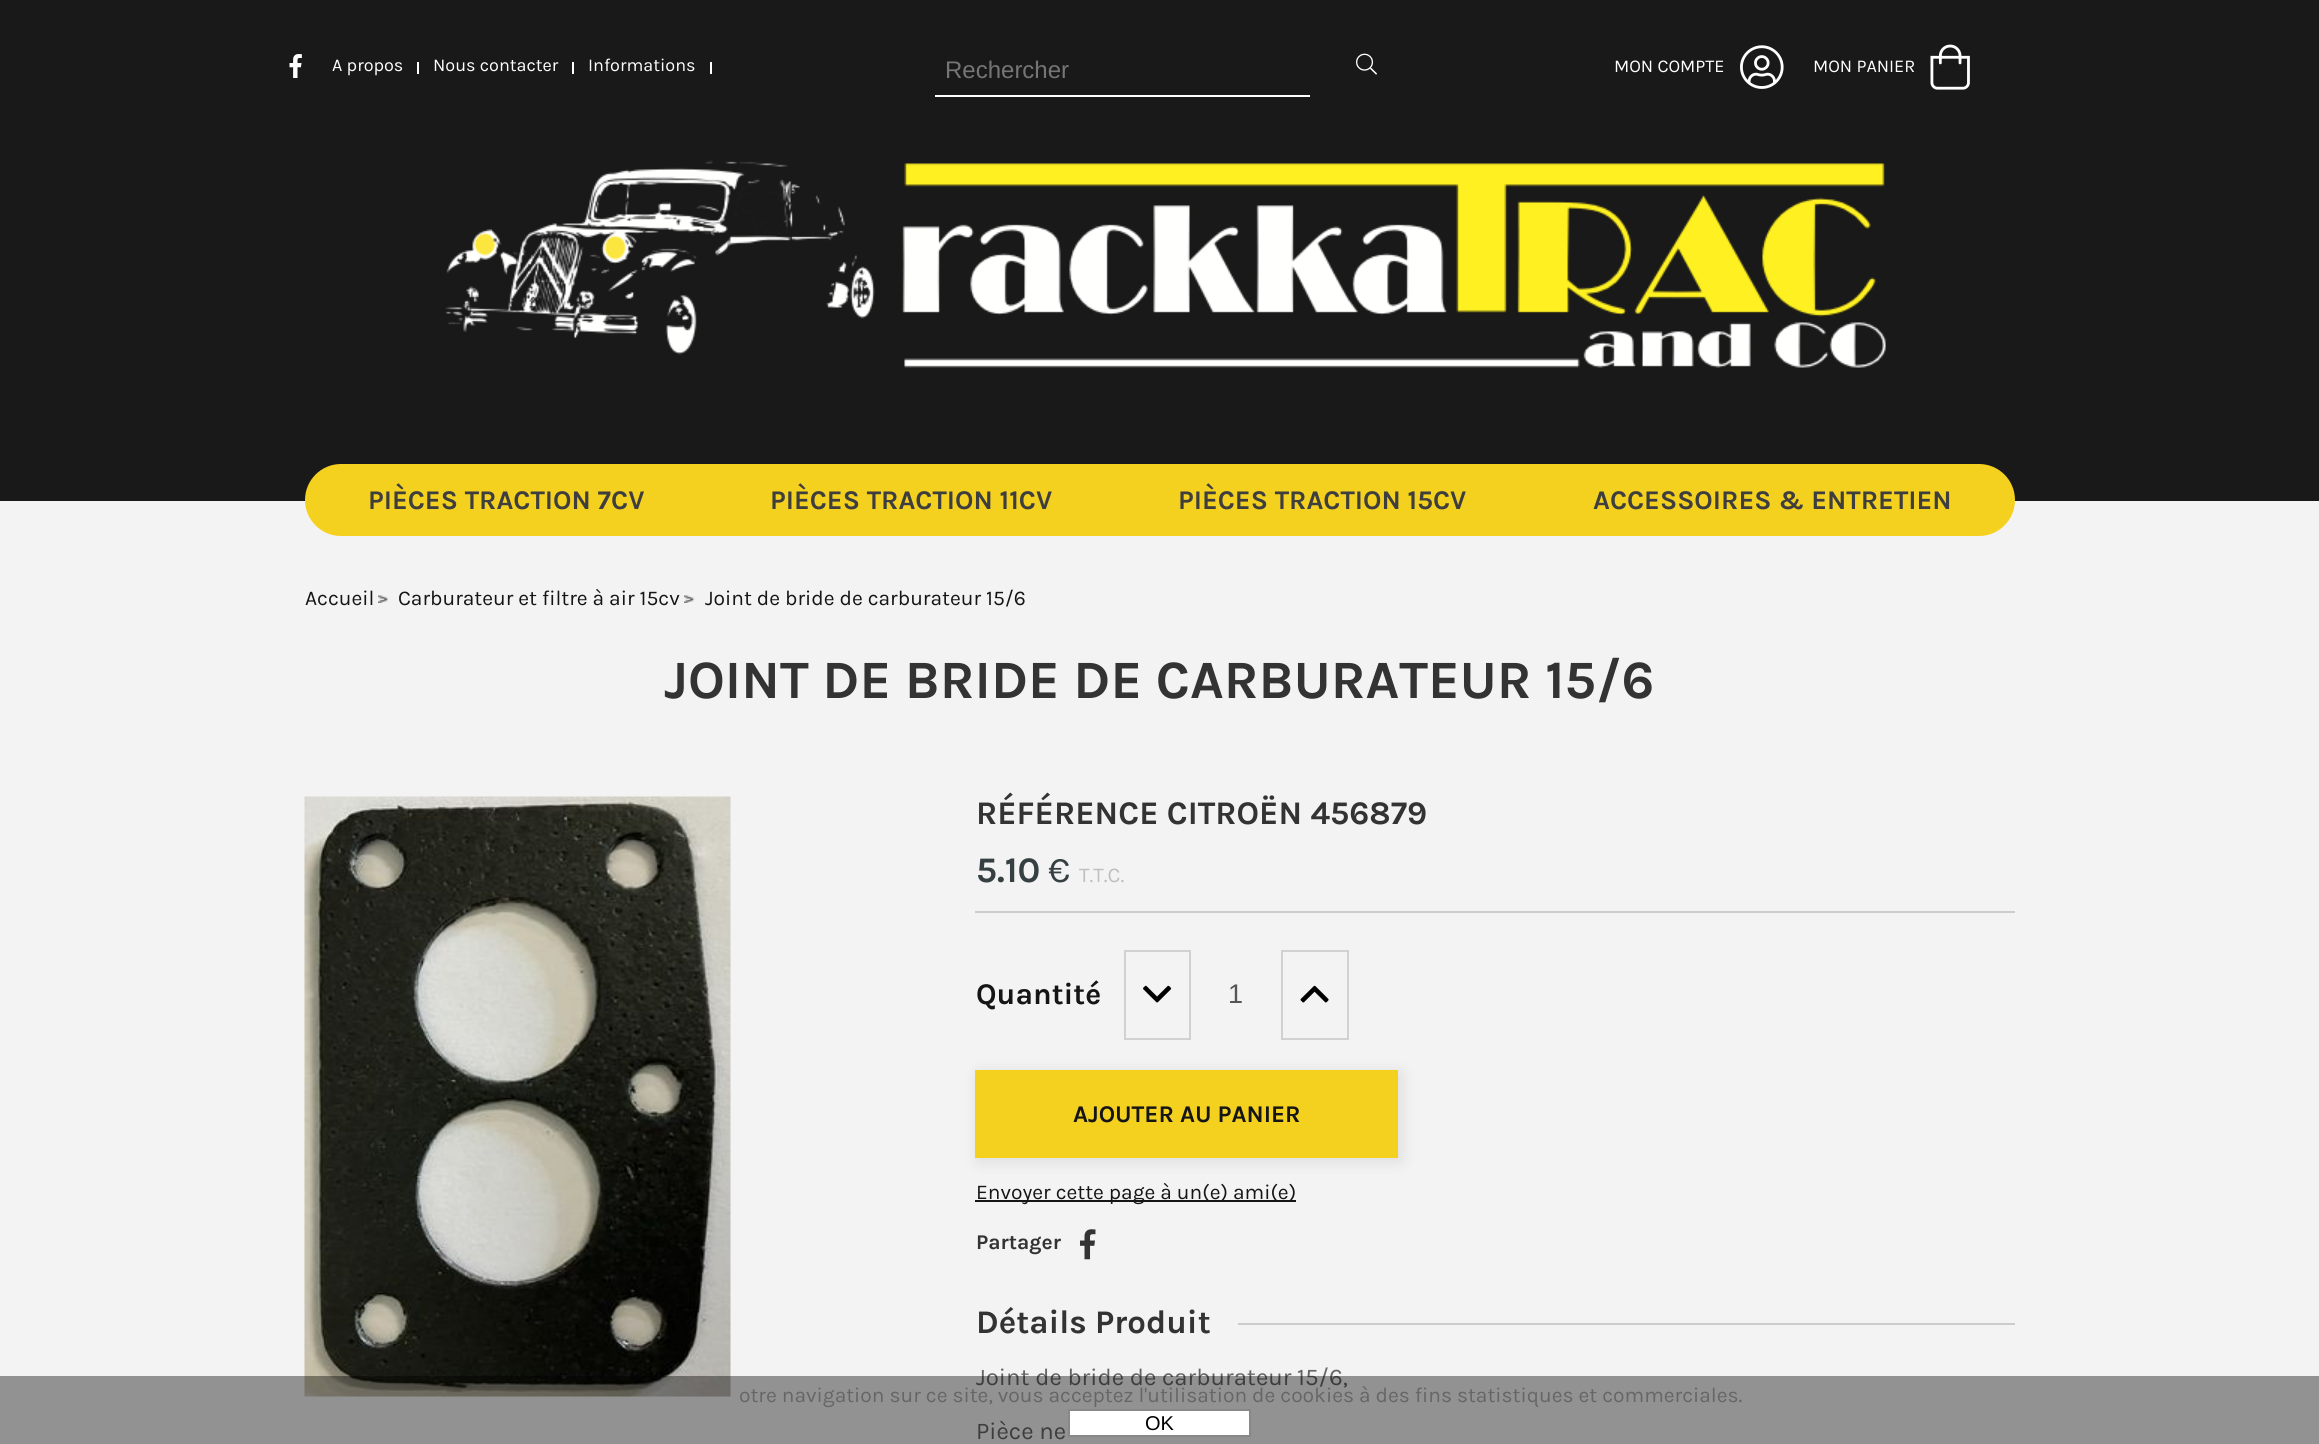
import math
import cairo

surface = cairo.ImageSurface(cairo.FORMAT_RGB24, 2319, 1444)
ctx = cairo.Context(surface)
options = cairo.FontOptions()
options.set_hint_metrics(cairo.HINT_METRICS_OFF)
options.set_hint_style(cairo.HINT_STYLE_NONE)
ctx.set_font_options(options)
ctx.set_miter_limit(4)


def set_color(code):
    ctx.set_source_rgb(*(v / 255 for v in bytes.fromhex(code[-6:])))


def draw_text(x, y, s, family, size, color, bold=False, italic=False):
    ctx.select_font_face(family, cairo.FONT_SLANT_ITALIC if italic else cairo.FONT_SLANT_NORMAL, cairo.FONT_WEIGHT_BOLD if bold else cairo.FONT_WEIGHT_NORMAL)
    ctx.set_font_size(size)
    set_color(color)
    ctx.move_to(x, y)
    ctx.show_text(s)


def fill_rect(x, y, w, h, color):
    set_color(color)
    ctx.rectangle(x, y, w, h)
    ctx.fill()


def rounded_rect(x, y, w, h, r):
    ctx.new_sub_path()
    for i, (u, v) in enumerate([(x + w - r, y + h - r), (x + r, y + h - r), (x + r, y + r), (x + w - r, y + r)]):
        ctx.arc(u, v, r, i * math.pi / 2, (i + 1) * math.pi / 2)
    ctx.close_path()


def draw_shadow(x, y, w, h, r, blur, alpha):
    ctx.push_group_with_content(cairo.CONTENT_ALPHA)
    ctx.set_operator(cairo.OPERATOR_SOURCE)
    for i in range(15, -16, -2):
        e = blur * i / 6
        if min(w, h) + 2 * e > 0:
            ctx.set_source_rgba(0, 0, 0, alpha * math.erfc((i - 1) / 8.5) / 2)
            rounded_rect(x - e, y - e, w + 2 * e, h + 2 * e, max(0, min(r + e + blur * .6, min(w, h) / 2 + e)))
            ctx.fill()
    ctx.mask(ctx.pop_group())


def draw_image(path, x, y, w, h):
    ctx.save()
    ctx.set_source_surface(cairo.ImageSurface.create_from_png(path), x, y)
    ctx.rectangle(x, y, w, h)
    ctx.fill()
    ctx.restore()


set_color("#f3f3f3")
ctx.paint()
fill_rect(0, 0, 2319, 501, "#1a1919")
draw_image("assets/img1.png", 289, 54, 13, 24)
draw_text(332, 71, "A propos", "Karla", 18, "#ffffff")
fill_rect(417, 62, 2, 12, "#ffffff")
draw_text(433, 71, "Nous contacter", "Karla", 18, "#ffffff")
fill_rect(572, 62, 2, 12, "#ffffff")
draw_text(588, 71, "Informations", "Karla", 18, "#ffffff")
fill_rect(710, 62, 2, 12, "#ffffff")
fill_rect(935, 95, 375, 2, "#ffffff")
draw_text(945, 78, "Rechercher", "Liberation Sans", 24, "#757575")
draw_image("assets/img2.png", 1356, 53, 21, 22)
draw_text(1614, 72, "MON COMPTE", "Karla", 18, "#ffffff")
draw_image("assets/img3.png", 1740, 45, 44, 44)
draw_text(1813, 72, "MON PANIER", "Karla", 18, "#ffffff")
draw_image("assets/img4.png", 1930, 44, 40, 46)
draw_image("assets/img5.png", 445, 160, 1441, 208)
set_color("#f5d11f")
rounded_rect(305, 464, 1710, 72, 36)
ctx.fill()
draw_text(368, 509, "PIÈCES TRACTION 7CV", "Karla", 27, "#3e3e3e", bold=True)
draw_text(770, 509, "PIÈCES TRACTION 11CV", "Karla", 27, "#3e3e3e", bold=True)
draw_text(1178, 509, "PIÈCES TRACTION 15CV", "Karla", 27, "#3e3e3e", bold=True)
draw_text(1593, 509, "ACCESSOIRES & ENTRETIEN", "Karla", 27, "#3e3e3e", bold=True)
draw_image("assets/img6.png", 378, 595, 11, 8)
draw_text(305, 605, "Accueil", "Karla", 21, "#151515")
draw_image("assets/img7.png", 684, 595, 11, 8)
draw_text(398, 605, "Carburateur et filtre à air 15cv", "Karla", 21, "#151515")
draw_text(705, 605, "Joint de bride de carburateur 15/6", "Karla", 21, "#151515")
draw_text(664, 698, "JOINT DE BRIDE DE CARBURATEUR 15/6", "Karla", 54, "#333333", bold=True)
draw_image("assets/img8.png", 304, 796, 427, 601)
draw_text(976, 824, "RÉFÉRENCE CITROËN 456879", "Karla", 33, "#333333", bold=True)
fill_rect(975, 911, 1040, 2, "#cccccc")
draw_text(976, 882, "5.10", "Karla", 36, "#364042", bold=True)
draw_text(1048, 882, "€", "Karla", 36, "#364042")
draw_text(1079, 882, "T.T.C.", "Karla", 21, "#bebebe")
draw_text(976, 1004, "Quantité", "Karla", 30, "#151515", bold=True)
ctx.rectangle(1125, 951, 65, 88)
set_color("#d1d1d1")
ctx.stroke()
draw_image("assets/img9.png", 1143, 985, 29, 18)
draw_text(1228, 1003, "1", "Liberation Sans", 27, "#555555")
ctx.rectangle(1282, 951, 66, 88)
set_color("#d1d1d1")
ctx.stroke()
draw_image("assets/img10.png", 1300, 985, 29, 18)
set_color("#000000")
draw_shadow(978, 1073, 423, 88, 0, 7.5, 0.1)
fill_rect(975, 1070, 423, 88, "#f5d11f")
draw_text(1073, 1122, "AJOUTER AU PANIER", "Karla", 24, "#151515", bold=True)
fill_rect(975, 1200, 321, 2, "#151515")
draw_text(976, 1199, "Envoyer cette page à un(e) ami(e)", "Karla", 21, "#151515")
draw_text(976, 1249, "Partager", "Karla", 21, "#333333", bold=True)
draw_image("assets/img11.png", 1080, 1229, 16, 31)
draw_text(976, 1333, "Détails Produit", "Karla", 33, "#333333", bold=True)
fill_rect(1238, 1323, 777, 2, "#cccccc")
draw_text(976, 1385, "Joint de bride de carburateur 15/6,", "Karla", 24, "#666666")
draw_text(976, 1439, "Pièce ne", "Karla", 24, "#666666")
ctx.set_source_rgba(0, 0, 0, 0.4)
ctx.rectangle(0, 1376, 2319, 68)
ctx.fill()
draw_text(739, 1402, "otre navigation sur ce site, vous acceptez l'utilisation de cookies à des fins statistiques et commerciales.", "Karla", 21, "#666666")
set_color("#ffffff")
ctx.rectangle(1069, 1410, 181, 26)
ctx.fill_preserve()
set_color("#888888")
ctx.stroke()
draw_text(1145, 1430, "OK", "Liberation Sans", 20, "#000000")
surface.write_to_png("output.png")
